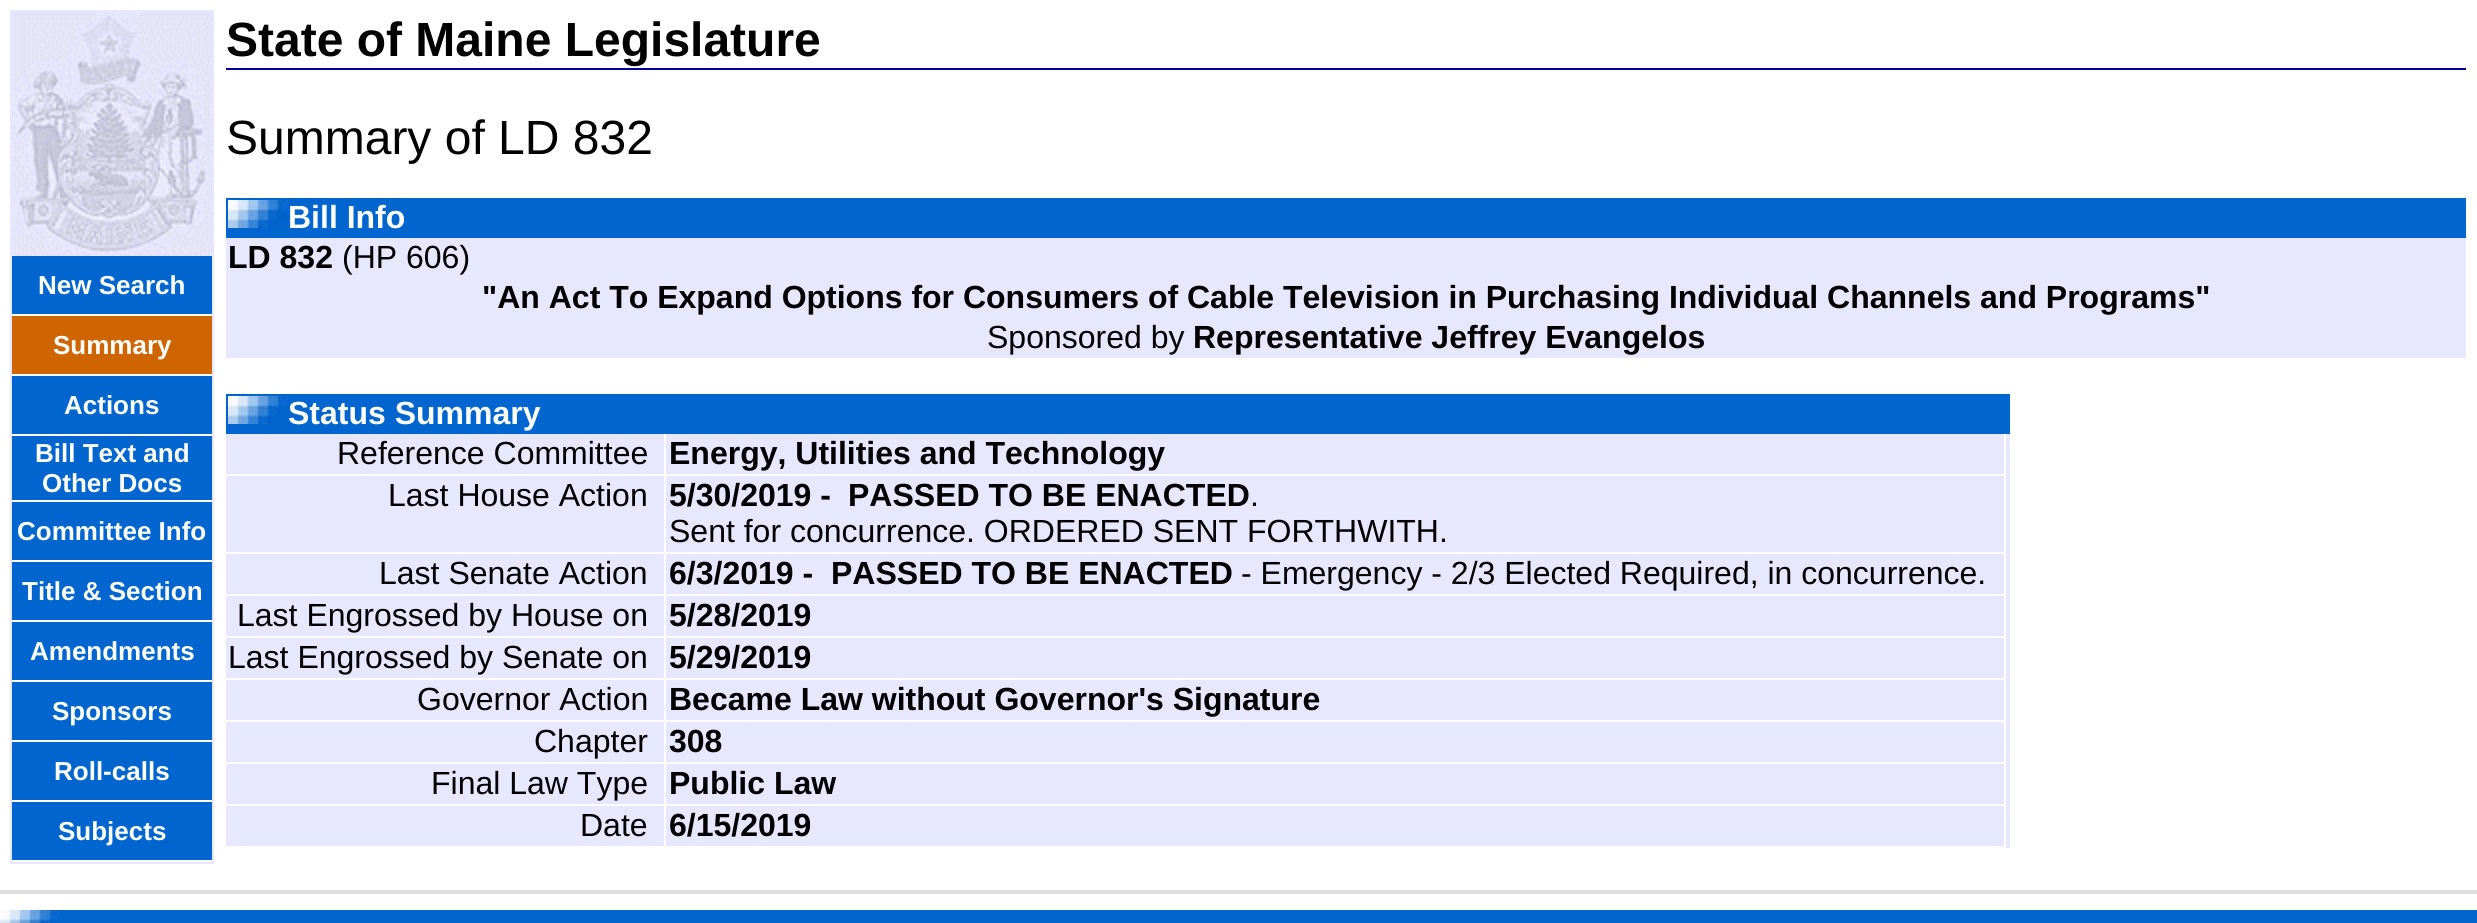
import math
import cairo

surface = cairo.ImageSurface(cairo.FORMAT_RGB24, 2477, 923)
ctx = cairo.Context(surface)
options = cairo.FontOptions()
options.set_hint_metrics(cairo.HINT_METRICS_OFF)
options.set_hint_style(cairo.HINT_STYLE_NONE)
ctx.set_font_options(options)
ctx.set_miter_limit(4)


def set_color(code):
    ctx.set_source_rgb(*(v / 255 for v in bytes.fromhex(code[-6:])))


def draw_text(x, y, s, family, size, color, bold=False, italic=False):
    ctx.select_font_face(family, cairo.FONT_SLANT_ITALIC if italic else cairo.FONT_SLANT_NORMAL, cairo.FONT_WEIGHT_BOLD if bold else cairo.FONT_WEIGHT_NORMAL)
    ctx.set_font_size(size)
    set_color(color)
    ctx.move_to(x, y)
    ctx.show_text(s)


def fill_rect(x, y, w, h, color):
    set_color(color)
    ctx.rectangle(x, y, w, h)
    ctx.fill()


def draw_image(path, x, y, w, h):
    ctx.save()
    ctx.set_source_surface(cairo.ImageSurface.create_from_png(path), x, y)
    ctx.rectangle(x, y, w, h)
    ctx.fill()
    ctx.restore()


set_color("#ffffff")
ctx.paint()
fill_rect(10, 10, 204, 854, "#e7e7ff")
draw_image("assets/img1.png", 12, 12, 200, 244)
fill_rect(12, 256, 200, 604, "#0065ce")
fill_rect(12, 314, 200, 2, "#ffffff")
draw_text(38, 294, "New Search", "Liberation Sans", 26, "#ffffff", bold=True)
fill_rect(12, 316, 200, 58, "#ce6500")
fill_rect(12, 374, 200, 2, "#ffffff")
draw_text(53, 354, "Summary", "Liberation Sans", 26, "#ffffff", bold=True)
fill_rect(12, 434, 200, 2, "#ffffff")
draw_text(64, 414, "Actions", "Liberation Sans", 26, "#ffffff", bold=True)
fill_rect(12, 500, 200, 2, "#ffffff")
draw_text(35, 462, "Bill Text and", "Liberation Sans", 26, "#ffffff", bold=True)
draw_text(42, 492, "Other Docs", "Liberation Sans", 26, "#ffffff", bold=True)
fill_rect(12, 560, 200, 2, "#ffffff")
draw_text(17, 540, "Committee Info", "Liberation Sans", 26, "#ffffff", bold=True)
fill_rect(12, 620, 200, 2, "#ffffff")
draw_text(22, 600, "Title & Section", "Liberation Sans", 26, "#ffffff", bold=True)
fill_rect(12, 680, 200, 2, "#ffffff")
draw_text(30, 660, "Amendments", "Liberation Sans", 26, "#ffffff", bold=True)
fill_rect(12, 740, 200, 2, "#ffffff")
draw_text(52, 720, "Sponsors", "Liberation Sans", 26, "#ffffff", bold=True)
fill_rect(12, 800, 200, 2, "#ffffff")
draw_text(54, 780, "Roll-calls", "Liberation Sans", 26, "#ffffff", bold=True)
fill_rect(12, 860, 200, 2, "#ffffff")
draw_text(58, 840, "Subjects", "Liberation Sans", 26, "#ffffff", bold=True)
fill_rect(226, 68, 2240, 2, "#00009c")
draw_text(226, 56, "State of Maine Legislature", "Liberation Sans", 48, "#000000", bold=True)
draw_text(226, 154, "Summary of LD 832", "Liberation Sans", 48, "#000000")
fill_rect(226, 198, 2240, 40, "#0065ce")
draw_image("assets/img2.png", 228, 200, 60, 28)
draw_text(288, 228, "Bill Info", "Liberation Sans", 32, "#ffffff", bold=True)
fill_rect(226, 238, 2240, 120, "#e7e7ff")
draw_text(228, 268, "LD 832", "Liberation Sans", 32, "#000000", bold=True)
draw_text(342, 268, "(HP 606)", "Liberation Sans", 32, "#000000")
draw_text(482, 308, "\"An Act To Expand Options for Consumers of Cable Television in Purchasing Individual Channels and Programs\"", "Liberation Sans", 32, "#000000", bold=True)
draw_text(987, 348, "Sponsored by", "Liberation Sans", 32, "#000000")
draw_text(1193, 348, "Representative Jeffrey Evangelos", "Liberation Sans", 32, "#000000", bold=True)
fill_rect(226, 434, 1784, 414, "#e7e7ff")
fill_rect(226, 394, 1784, 40, "#0065ce")
draw_image("assets/img2.png", 228, 396, 60, 28)
draw_text(288, 424, "Status Summary", "Liberation Sans", 32, "#ffffff", bold=True)
fill_rect(664, 434, 2, 414, "#ffffff")
fill_rect(226, 474, 440, 2, "#ffffff")
draw_text(337, 464, "Reference Committee", "Liberation Sans", 32, "#000000")
fill_rect(2004, 434, 2, 414, "#ffffff")
fill_rect(666, 474, 1340, 2, "#ffffff")
draw_text(669, 464, "Energy, Utilities and Technology", "Liberation Sans", 32, "#000000", bold=True)
fill_rect(226, 552, 1780, 2, "#ffffff")
draw_text(388, 506, "Last House Action", "Liberation Sans", 32, "#000000")
draw_text(669, 506, "5/30/2019 -", "Liberation Sans", 32, "#000000", bold=True)
draw_text(848, 506, "PASSED TO BE ENACTED", "Liberation Sans", 32, "#000000", bold=True)
draw_text(1250, 506, ".", "Liberation Sans", 32, "#000000")
draw_text(669, 542, "Sent for concurrence. ORDERED SENT FORTHWITH.", "Liberation Sans", 32, "#000000")
fill_rect(226, 594, 1780, 2, "#ffffff")
draw_text(379, 584, "Last Senate Action", "Liberation Sans", 32, "#000000")
draw_text(669, 584, "6/3/2019 -", "Liberation Sans", 32, "#000000", bold=True)
draw_text(831, 584, "PASSED TO BE ENACTED", "Liberation Sans", 32, "#000000", bold=True)
draw_text(1241, 584, "- Emergency - 2/3 Elected Required, in concurrence.", "Liberation Sans", 32, "#000000")
fill_rect(226, 636, 1780, 2, "#ffffff")
draw_text(237, 626, "Last Engrossed by House on", "Liberation Sans", 32, "#000000")
draw_text(669, 626, "5/28/2019", "Liberation Sans", 32, "#000000", bold=True)
fill_rect(226, 678, 1780, 2, "#ffffff")
draw_text(228, 668, "Last Engrossed by Senate on", "Liberation Sans", 32, "#000000")
draw_text(669, 668, "5/29/2019", "Liberation Sans", 32, "#000000", bold=True)
fill_rect(226, 720, 1780, 2, "#ffffff")
draw_text(417, 710, "Governor Action", "Liberation Sans", 32, "#000000")
draw_text(669, 710, "Became Law without Governor's Signature", "Liberation Sans", 32, "#000000", bold=True)
fill_rect(226, 762, 1780, 2, "#ffffff")
draw_text(534, 752, "Chapter", "Liberation Sans", 32, "#000000")
draw_text(669, 752, "308", "Liberation Sans", 32, "#000000", bold=True)
fill_rect(226, 804, 1780, 2, "#ffffff")
draw_text(431, 794, "Final Law Type", "Liberation Sans", 32, "#000000")
draw_text(669, 794, "Public Law", "Liberation Sans", 32, "#000000", bold=True)
fill_rect(226, 846, 1780, 2, "#ffffff")
draw_text(580, 836, "Date", "Liberation Sans", 32, "#000000")
draw_text(669, 836, "6/15/2019", "Liberation Sans", 32, "#000000", bold=True)
fill_rect(0, 890, 2477, 4, "#dddddd")
fill_rect(60, 910, 2417, 13, "#0065ce")
draw_image("assets/img3.png", 0, 910, 60, 13)
surface.write_to_png("output.png")
